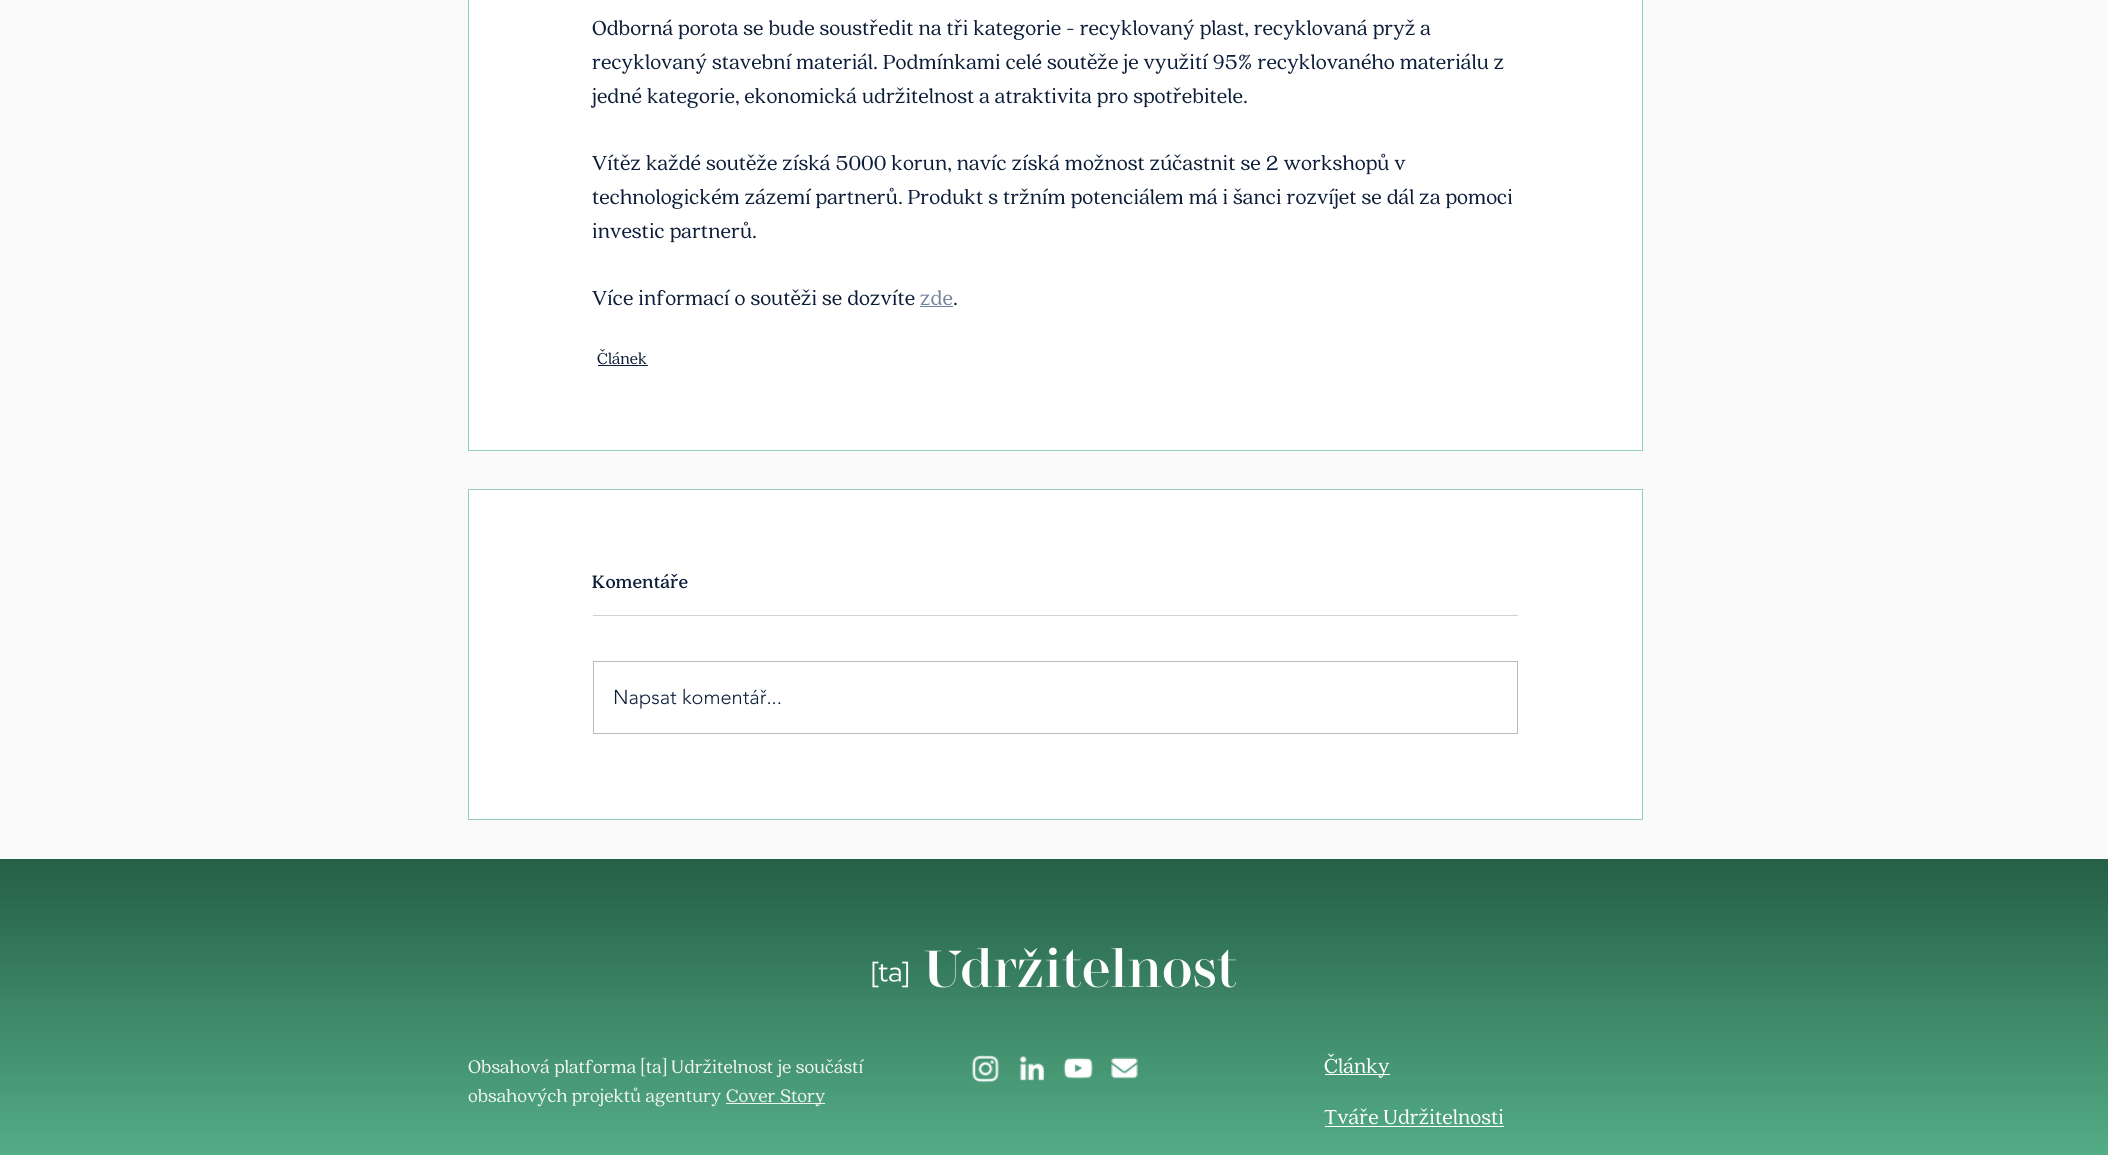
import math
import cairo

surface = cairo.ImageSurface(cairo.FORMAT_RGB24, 2108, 1155)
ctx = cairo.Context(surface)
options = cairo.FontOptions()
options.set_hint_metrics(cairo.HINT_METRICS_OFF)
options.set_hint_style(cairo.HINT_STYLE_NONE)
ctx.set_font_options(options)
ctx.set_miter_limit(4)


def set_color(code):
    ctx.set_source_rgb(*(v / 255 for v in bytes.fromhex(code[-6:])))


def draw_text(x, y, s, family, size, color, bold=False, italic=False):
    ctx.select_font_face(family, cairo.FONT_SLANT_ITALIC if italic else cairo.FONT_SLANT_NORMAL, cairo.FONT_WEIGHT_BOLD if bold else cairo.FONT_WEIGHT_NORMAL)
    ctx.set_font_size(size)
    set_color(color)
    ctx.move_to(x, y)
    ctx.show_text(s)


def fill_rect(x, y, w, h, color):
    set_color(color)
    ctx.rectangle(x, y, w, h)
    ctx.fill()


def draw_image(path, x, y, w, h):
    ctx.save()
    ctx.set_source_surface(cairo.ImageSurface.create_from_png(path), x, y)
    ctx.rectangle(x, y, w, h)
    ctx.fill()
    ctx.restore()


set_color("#fafafa")
ctx.paint()
set_color("#ffffff")
ctx.rectangle(468.5, -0.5, 1174, 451)
ctx.fill_preserve()
set_color("#94d0b6")
ctx.set_line_width(1)
ctx.stroke()
draw_text(592, 35, "Odborná porota se bude soustředit na tři kategorie - recyklovaný plast, recyklovaná pryž a", "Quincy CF", 22.5, "#0c1d39")
draw_text(592, 69, "recyklovaný stavební materiál. Podmínkami celé soutěže je využití 95% recyklovaného materiálu z", "Quincy CF", 22.5, "#0c1d39")
draw_text(592, 103, "jedné kategorie, ekonomická udržitelnost a atraktivita pro spotřebitele.", "Quincy CF", 22.5, "#0c1d39")
draw_text(592, 170, "Vítěz každé soutěže získá 5000 korun, navíc získá možnost zúčastnit se 2 workshopů v", "Quincy CF", 22.5, "#0c1d39")
draw_text(592, 204, "technologickém zázemí partnerů. Produkt s tržním potenciálem má i šanci rozvíjet se dál za pomoci", "Quincy CF", 22.5, "#0c1d39")
draw_text(592, 238, "investic partnerů.", "Quincy CF", 22.5, "#0c1d39")
draw_text(592, 305, "Více informací o soutěži se dozvíte", "Quincy CF", 22.5, "#0c1d39")
draw_text(920, 305, "zde", "Quincy CF", 22.5, "#73839c")
fill_rect(920, 306, 33, 1, "#73839c")
draw_text(953, 305, ".", "Quincy CF", 22.5, "#0c1d39")
draw_text(597, 364, "Článek", "Quincy CF", 17.5, "#0c1d39")
fill_rect(598, 365, 50, 1, "#0c1d39")
set_color("#ffffff")
ctx.rectangle(468.5, 489.5, 1174, 330)
ctx.fill_preserve()
set_color("#94d0b6")
ctx.stroke()
draw_text(592, 588, "Komentáře", "Quincy CF", 20, "#0c1d39", bold=True)
fill_rect(593, 615, 925, 1, "#ced2d7")
ctx.rectangle(593.5, 661.5, 924, 72)
set_color("#b6bbc4")
ctx.stroke()
draw_text(613, 704, "Napsat komentář...", "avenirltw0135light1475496 Light", 20, "#0c1d39")
gradient = cairo.LinearGradient(1054, 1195, 1054, 859)
gradient.add_color_stop_rgba(0, 0.353, 0.718, 0.561, 1)
gradient.add_color_stop_rgba(1, 0.145, 0.373, 0.275, 1)
ctx.set_source(gradient)
ctx.rectangle(0, 859, 2108, 296)
ctx.fill()
draw_text(468, 1073, "Obsahová platforma [ta] Udržitelnost je součástí", "Quincy CF", 20, "#f1f5f2")
draw_text(468, 1102, "obsahových projektů agentury", "Quincy CF", 20, "#f1f5f2")
fill_rect(726, 1103, 99, 1, "#f1f5f2")
draw_text(726, 1102, "Cover Story", "Quincy CF", 20, "#f1f5f2")
draw_image("assets/img1.png", 872, 947, 365, 41)
draw_image("assets/img2.png", 972, 1055, 27, 28)
draw_image("assets/img3.png", 1019, 1056, 26, 25)
draw_image("assets/img4.png", 1063, 1057, 30, 22)
draw_image("assets/img5.png", 1111, 1057, 27, 22)
fill_rect(1325, 1074, 65, 1, "#ffffff")
draw_text(1324, 1073, "Články", "Quincy CF", 22.5, "#ffffff")
draw_text(1324, 1124, "Tváře Udržitelnosti", "Quincy CF", 22.5, "#ffffff")
fill_rect(1325, 1126, 179, 1, "#ffffff")
surface.write_to_png("output.png")
